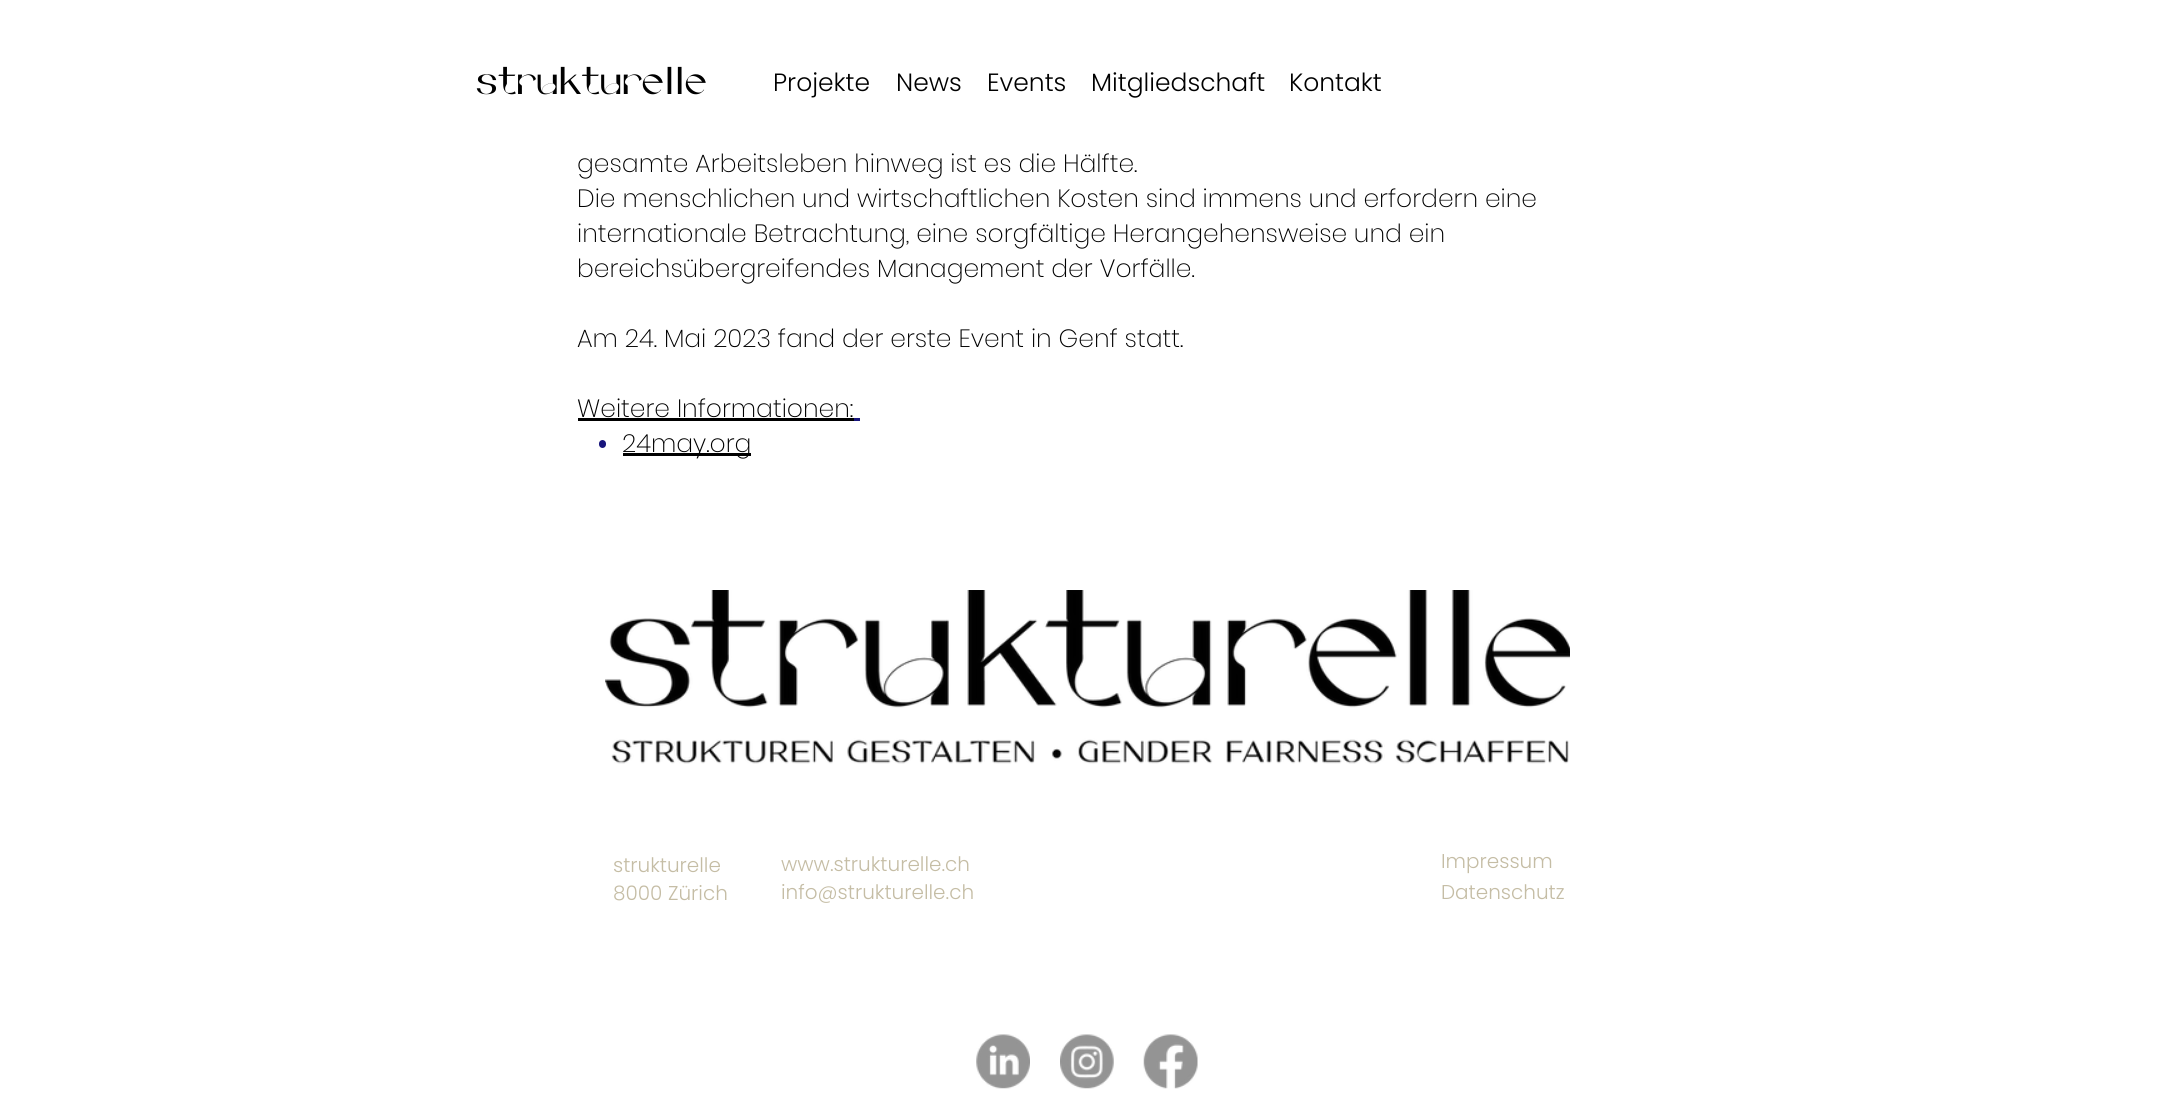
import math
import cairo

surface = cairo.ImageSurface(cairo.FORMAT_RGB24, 2176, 1098)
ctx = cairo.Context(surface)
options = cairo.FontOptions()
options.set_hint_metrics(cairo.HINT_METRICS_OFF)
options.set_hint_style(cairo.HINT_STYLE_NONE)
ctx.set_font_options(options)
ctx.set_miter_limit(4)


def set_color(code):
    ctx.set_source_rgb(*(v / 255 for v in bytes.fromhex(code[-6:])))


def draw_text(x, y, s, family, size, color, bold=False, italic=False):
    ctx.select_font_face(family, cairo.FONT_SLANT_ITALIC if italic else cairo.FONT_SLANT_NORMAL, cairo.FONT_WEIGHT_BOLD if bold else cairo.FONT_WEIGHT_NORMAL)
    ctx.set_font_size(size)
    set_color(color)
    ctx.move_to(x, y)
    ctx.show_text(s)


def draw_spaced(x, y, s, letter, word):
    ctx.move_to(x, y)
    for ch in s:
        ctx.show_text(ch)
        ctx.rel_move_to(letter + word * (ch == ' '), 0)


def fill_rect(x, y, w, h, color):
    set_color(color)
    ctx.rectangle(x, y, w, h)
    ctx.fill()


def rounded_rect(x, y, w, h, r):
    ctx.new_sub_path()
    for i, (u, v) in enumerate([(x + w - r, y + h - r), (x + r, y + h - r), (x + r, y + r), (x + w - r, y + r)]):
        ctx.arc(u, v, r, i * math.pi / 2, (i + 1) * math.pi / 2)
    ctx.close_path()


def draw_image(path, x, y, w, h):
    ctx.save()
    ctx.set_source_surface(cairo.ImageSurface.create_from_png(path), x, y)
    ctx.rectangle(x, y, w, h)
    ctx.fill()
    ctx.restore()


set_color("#ffffff")
ctx.paint()
ctx.select_font_face("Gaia")
ctx.set_font_size(38.75)
set_color("#000000")
draw_spaced(476, 94, "strukturelle", 0.4, 0)
draw_text(773, 91, "Projekte", "Poppins Light", 25, "#000000")
draw_text(896, 91, "News", "Poppins Light", 25, "#000000")
draw_text(987, 91, "Events", "Poppins Light", 25, "#000000")
draw_text(1091, 91, "Mitgliedschaft", "Poppins Light", 25, "#000000")
draw_text(1289, 91, "Kontakt", "Poppins Light", 25, "#000000")
draw_text(577, 172, "gesamte Arbeitsleben hinweg ist es die Hälfte.", "Poppins ExtraLight", 25, "#000000")
draw_text(577, 207, "Die menschlichen und wirtschaftlichen Kosten sind immens und erfordern eine", "Poppins ExtraLight", 25, "#000000")
draw_text(577, 242, "internationale Betrachtung, eine sorgfältige Herangehensweise und ein", "Poppins ExtraLight", 25, "#000000")
draw_text(577, 277, "bereichsübergreifendes Management der Vorfälle.", "Poppins ExtraLight", 25, "#000000")
draw_text(577, 347, "Am 24. Mai 2023 fand der erste Event in Genf statt.", "Poppins ExtraLight", 25, "#000000")
draw_text(577, 417, "Weitere Informationen:", "Poppins ExtraLight", 25, "#000000")
fill_rect(578, 418, 276, 3, "#000000")
fill_rect(854, 418, 6, 3, "#18157c")
rounded_rect(599, 440, 7, 8, 3.5)
ctx.fill()
fill_rect(623, 453, 128, 3, "#000000")
draw_text(622, 452, "24may.org", "Poppins ExtraLight", 25, "#000000")
draw_image("assets/img1.png", 605, 590, 965, 174)
draw_text(613, 872, "strukturelle", "Poppins Light", 20, "#c5bda5")
draw_text(613, 900, "8000 Zürich", "Poppins Light", 20, "#c5bda5")
draw_text(781, 871, "www.strukturelle.ch", "Poppins Light", 20, "#c5bda5")
draw_text(781, 899, "info@strukturelle.ch", "Poppins Light", 20, "#c5bda5")
draw_text(1441, 868, "Impressum", "Poppins Light", 20, "#c5bda5")
draw_text(1441, 899, "Datenschutz", "Poppins Light", 20, "#c5bda5")
draw_image("assets/img2.png", 976, 1034, 54, 55)
draw_image("assets/img3.png", 1060, 1034, 54, 55)
draw_image("assets/img4.png", 1143, 1034, 55, 55)
surface.write_to_png("output.png")
